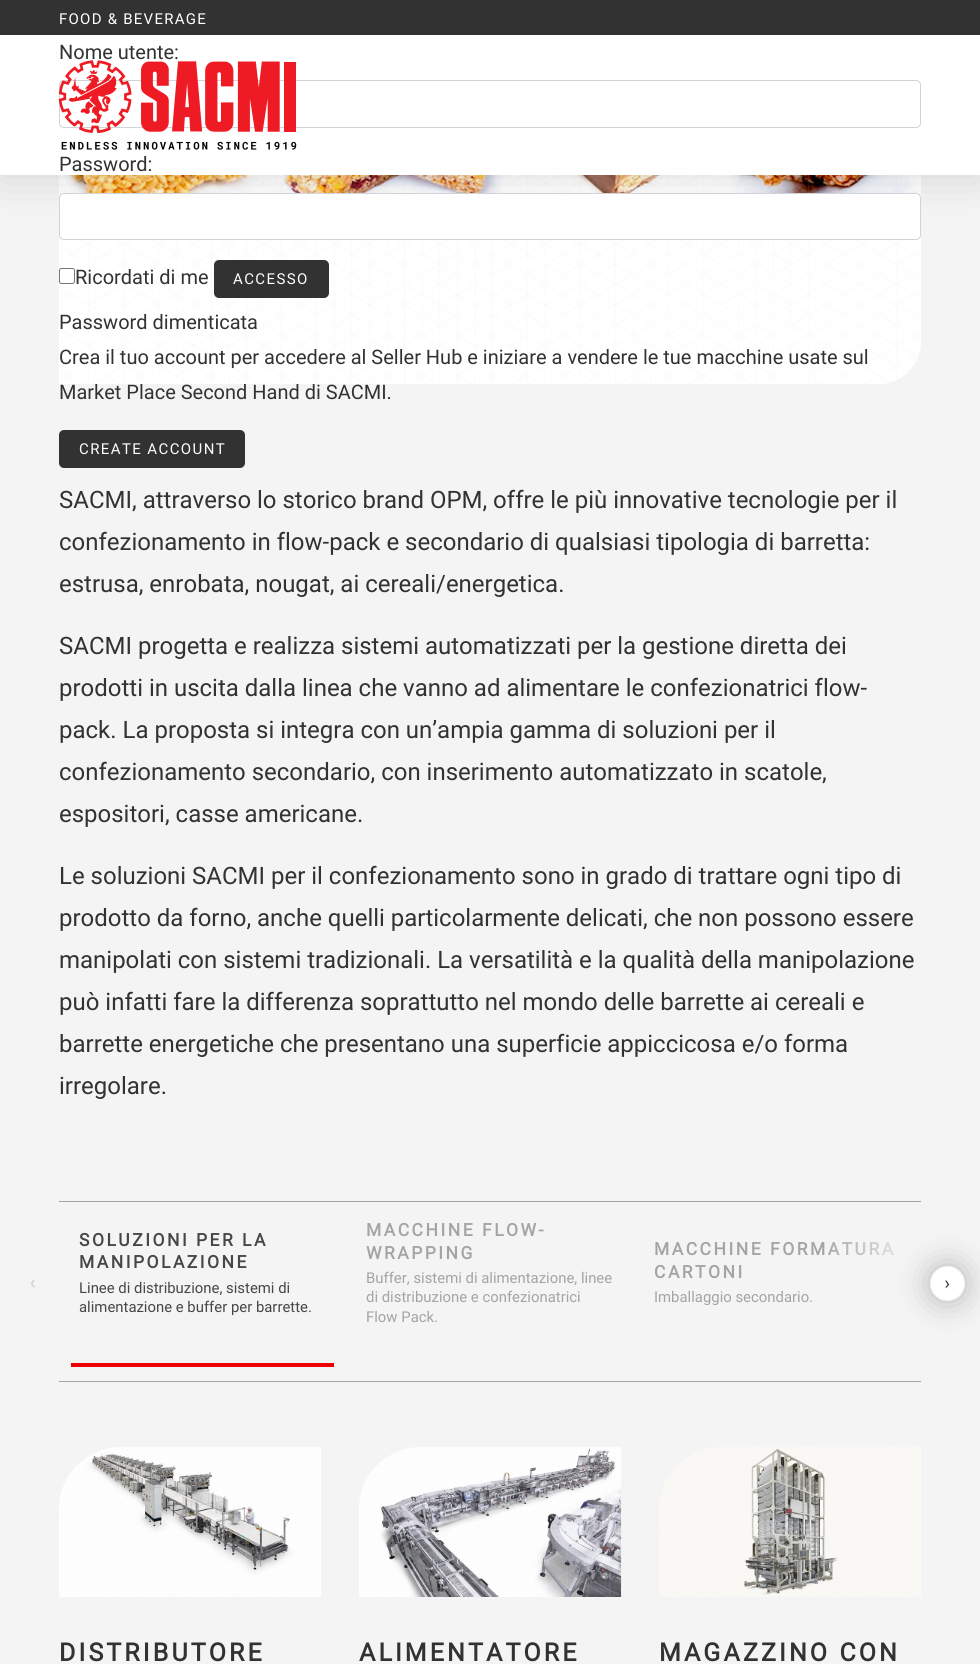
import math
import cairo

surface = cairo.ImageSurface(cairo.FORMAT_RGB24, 980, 1664)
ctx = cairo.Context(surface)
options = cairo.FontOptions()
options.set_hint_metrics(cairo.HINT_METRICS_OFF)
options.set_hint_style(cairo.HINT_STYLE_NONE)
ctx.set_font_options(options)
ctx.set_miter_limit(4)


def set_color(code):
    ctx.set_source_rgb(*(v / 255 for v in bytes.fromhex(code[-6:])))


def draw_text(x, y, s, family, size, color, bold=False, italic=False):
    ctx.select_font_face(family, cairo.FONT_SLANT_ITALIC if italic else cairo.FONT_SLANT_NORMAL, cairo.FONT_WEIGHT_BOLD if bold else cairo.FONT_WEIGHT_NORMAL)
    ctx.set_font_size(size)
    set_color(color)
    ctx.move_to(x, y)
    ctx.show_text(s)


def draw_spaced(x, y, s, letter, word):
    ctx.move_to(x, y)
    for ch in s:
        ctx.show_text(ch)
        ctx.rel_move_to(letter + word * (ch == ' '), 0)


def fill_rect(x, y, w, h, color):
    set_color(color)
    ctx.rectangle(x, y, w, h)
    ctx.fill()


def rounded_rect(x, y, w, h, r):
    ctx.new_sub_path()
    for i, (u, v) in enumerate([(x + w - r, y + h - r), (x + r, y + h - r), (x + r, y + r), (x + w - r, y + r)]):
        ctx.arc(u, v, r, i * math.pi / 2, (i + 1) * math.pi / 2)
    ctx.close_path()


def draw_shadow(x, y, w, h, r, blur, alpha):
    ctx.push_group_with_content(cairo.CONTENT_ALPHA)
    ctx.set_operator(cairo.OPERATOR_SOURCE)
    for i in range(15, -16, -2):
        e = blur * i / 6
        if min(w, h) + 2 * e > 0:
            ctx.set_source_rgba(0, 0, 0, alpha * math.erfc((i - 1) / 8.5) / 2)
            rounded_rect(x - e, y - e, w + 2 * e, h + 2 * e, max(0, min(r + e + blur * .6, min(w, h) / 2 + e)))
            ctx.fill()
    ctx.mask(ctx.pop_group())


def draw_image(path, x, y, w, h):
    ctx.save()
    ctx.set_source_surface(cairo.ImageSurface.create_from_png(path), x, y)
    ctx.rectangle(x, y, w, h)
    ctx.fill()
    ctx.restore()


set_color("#f4f4f4")
ctx.paint()
draw_image("assets/img2.png", 58, 175, 863, 209)
set_color("#000000")
draw_shadow(0, 0, 980, 175, 0, 22.5, 0.15)
fill_rect(0, 35, 980, 140, "#ffffff")
fill_rect(0, 0, 980, 35, "#323232")
ctx.select_font_face("Roboto")
ctx.set_font_size(15)
set_color("#ffffff")
draw_spaced(59, 24, "FOOD & BEVERAGE", 1.25, 0)
draw_text(59, 59, "Nome utente:", "Roboto", 20, "#323232")
rounded_rect(59.5, 80.5, 861, 47, 4.5)
set_color("#ced4da")
ctx.set_line_width(1)
ctx.stroke()
draw_text(59, 171, "Password:", "Roboto", 20, "#323232")
set_color("#ffffff")
rounded_rect(59.5, 193.5, 861, 46, 4.5)
ctx.fill_preserve()
set_color("#ced4da")
ctx.stroke()
set_color("#ffffff")
rounded_rect(59.5, 268.5, 15, 15, 2)
ctx.fill_preserve()
set_color("#767676")
ctx.stroke()
draw_text(75, 284, "Ricordati di me", "Roboto", 20, "#323232")
rounded_rect(214, 260, 115, 38, 5)
ctx.fill()
ctx.set_font_size(15)
set_color("#ffffff")
draw_spaced(233, 284, "ACCESSO", 1.4, 0)
draw_text(59, 329, "Password dimenticata", "Roboto", 20, "#323232")
draw_text(59, 364, "Crea il tuo account per accedere al Seller Hub e iniziare a vendere le tue macchine usate sul", "Roboto", 20, "#323232")
draw_text(59, 399, "Market Place Second Hand di SACMI.", "Roboto", 20, "#323232")
rounded_rect(59, 430, 186, 38, 5)
ctx.fill()
ctx.set_font_size(15)
set_color("#ffffff")
draw_spaced(79, 454, "CREATE ACCOUNT", 1.4, 0)
draw_image("assets/img1.png", 58, 60, 239, 90)
draw_text(59, 508, "SACMI, attraverso lo storico brand OPM, offre le più innovative tecnologie per il", "Roboto", 24, "#323232")
draw_text(59, 550, "confezionamento in flow-pack e secondario di qualsiasi tipologia di barretta:", "Roboto", 24, "#323232")
draw_text(59, 592, "estrusa, enrobata, nougat, ai cereali/energetica.", "Roboto", 24, "#323232")
draw_text(59, 654, "SACMI progetta e realizza sistemi automatizzati per la gestione diretta dei", "Roboto", 24, "#323232")
draw_text(59, 696, "prodotti in uscita dalla linea che vanno ad alimentare le confezionatrici flow-", "Roboto", 24, "#323232")
draw_text(59, 738, "pack. La proposta si integra con un’ampia gamma di soluzioni per il", "Roboto", 24, "#323232")
draw_text(59, 780, "confezionamento secondario, con inserimento automatizzato in scatole,", "Roboto", 24, "#323232")
draw_text(59, 822, "espositori, casse americane.", "Roboto", 24, "#323232")
draw_text(59, 884, "Le soluzioni SACMI per il confezionamento sono in grado di trattare ogni tipo di", "Roboto", 24, "#323232")
draw_text(59, 926, "prodotto da forno, anche quelli particolarmente delicati, che non possono essere", "Roboto", 24, "#323232")
draw_text(59, 968, "manipolati con sistemi tradizionali. La versatilità e la qualità della manipolazione", "Roboto", 24, "#323232")
draw_text(59, 1010, "può infatti fare la differenza soprattutto nel mondo delle barrette ai cereali e", "Roboto", 24, "#323232")
draw_text(59, 1052, "barrette energetiche che presentano una superficie appiccicosa e/o forma", "Roboto", 24, "#323232")
draw_text(59, 1094, "irregolare.", "Roboto", 24, "#323232")
ctx.save()
ctx.new_path()
ctx.move_to(35, 1280)
ctx.line_to(35, 1287.5)
ctx.line_to(30, 1287.5)
ctx.line_to(30, 1280)
ctx.close_path()
ctx.clip()
ctx.new_path()
ctx.move_to(34, 1280)
ctx.line_to(31.5, 1283.5)
ctx.line_to(34, 1287)
set_color("#cdcdcd")
ctx.set_line_width(1.2)
ctx.set_line_cap(cairo.LINE_CAP_ROUND)
ctx.set_line_join(cairo.LINE_JOIN_ROUND)
ctx.stroke()
ctx.restore()
ctx.select_font_face("Roboto", cairo.FONT_SLANT_NORMAL, cairo.FONT_WEIGHT_BOLD)
ctx.set_font_size(17.5)
set_color("#a4a4a4")
draw_spaced(654, 1255, "MACCHINE FORMATURA", 2.5, 0)
gradient = cairo.LinearGradient(821, 1292, 921, 1292)
gradient.add_color_stop_rgba(0, 0.957, 0.957, 0.957, 0)
gradient.add_color_stop_rgba(1, 0.957, 0.957, 0.957, 1)
ctx.set_source(gradient)
ctx.rectangle(828, 1242, 65, 14)
ctx.fill()
set_color("#000000")
draw_shadow(930, 1266, 35, 35, 17.5, 15.5, 0.25)
set_color("#ffffff")
ctx.arc(947.5, 1283.5, 17.5, 0, 2 * math.pi)
ctx.fill()
ctx.arc(947.5, 1283.5, 17, 0, 2 * math.pi)
ctx.set_source_rgba(0.867, 0.867, 0.867, 0.38)
ctx.stroke()
ctx.save()
ctx.new_path()
ctx.move_to(945, 1287.5)
ctx.line_to(945, 1280)
ctx.line_to(950, 1280)
ctx.line_to(950, 1287.5)
ctx.close_path()
ctx.clip()
ctx.new_path()
ctx.move_to(946, 1287.5)
ctx.line_to(948.5, 1284.5)
ctx.line_to(946, 1281)
set_color("#323232")
ctx.set_line_width(1.2)
ctx.set_line_cap(cairo.LINE_CAP_ROUND)
ctx.set_line_join(cairo.LINE_JOIN_ROUND)
ctx.stroke()
ctx.restore()
fill_rect(59, 1201, 862, 1, "#a4a4a4")
fill_rect(59, 1381, 862, 1, "#a4a4a4")
set_color("#464646")
draw_spaced(79, 1246, "SOLUZIONI PER LA", 2.5, 0)
draw_spaced(79, 1268, "MANIPOLAZIONE", 2.5, 0)
draw_text(79, 1293, "Linee di distribuzione, sistemi di", "Roboto", 14.9, "#464646")
draw_text(79, 1312, "alimentazione e buffer per barrette.", "Roboto", 14.9, "#464646")
fill_rect(71, 1363, 263, 4, "#ee0000")
ctx.select_font_face("Roboto", cairo.FONT_SLANT_NORMAL, cairo.FONT_WEIGHT_BOLD)
ctx.set_font_size(17.5)
set_color("#a4a4a4")
draw_spaced(366, 1236, "MACCHINE FLOW-", 2.5, 0)
draw_spaced(366, 1259, "WRAPPING", 2.5, 0)
draw_text(366, 1283, "Buffer, sistemi di alimentazione, linee", "Roboto", 14.9, "#a4a4a4")
draw_text(366, 1302, "di distribuzione e confezionatrici", "Roboto", 14.9, "#a4a4a4")
draw_text(366, 1322, "Flow Pack.", "Roboto", 14.9, "#a4a4a4")
ctx.select_font_face("Roboto", cairo.FONT_SLANT_NORMAL, cairo.FONT_WEIGHT_BOLD)
ctx.set_font_size(17.5)
draw_spaced(654, 1278, "CARTONI", 2.5, 0)
draw_text(654, 1302, "Imballaggio secondario.", "Roboto", 14.9, "#a4a4a4")
draw_image("assets/img3.png", 59, 1447, 262, 150)
draw_image("assets/img4.png", 97, 1455, 192, 112)
ctx.select_font_face("Roboto", cairo.FONT_SLANT_NORMAL, cairo.FONT_WEIGHT_BOLD)
ctx.set_font_size(25)
set_color("#323232")
draw_spaced(59, 1661, "DISTRIBUTORE", 3.1, 0)
draw_image("assets/img5.png", 359, 1447, 263, 150)
draw_image("assets/img6.png", 381, 1451, 240, 146)
draw_spaced(359, 1661, "ALIMENTATORE", 3.1, 0)
draw_image("assets/img7.png", 659, 1447, 262, 150)
draw_image("assets/img8.png", 748, 1451, 84, 142)
draw_spaced(659, 1661, "MAGAZZINO CON", 3.1, 0)
surface.write_to_png("output.png")
